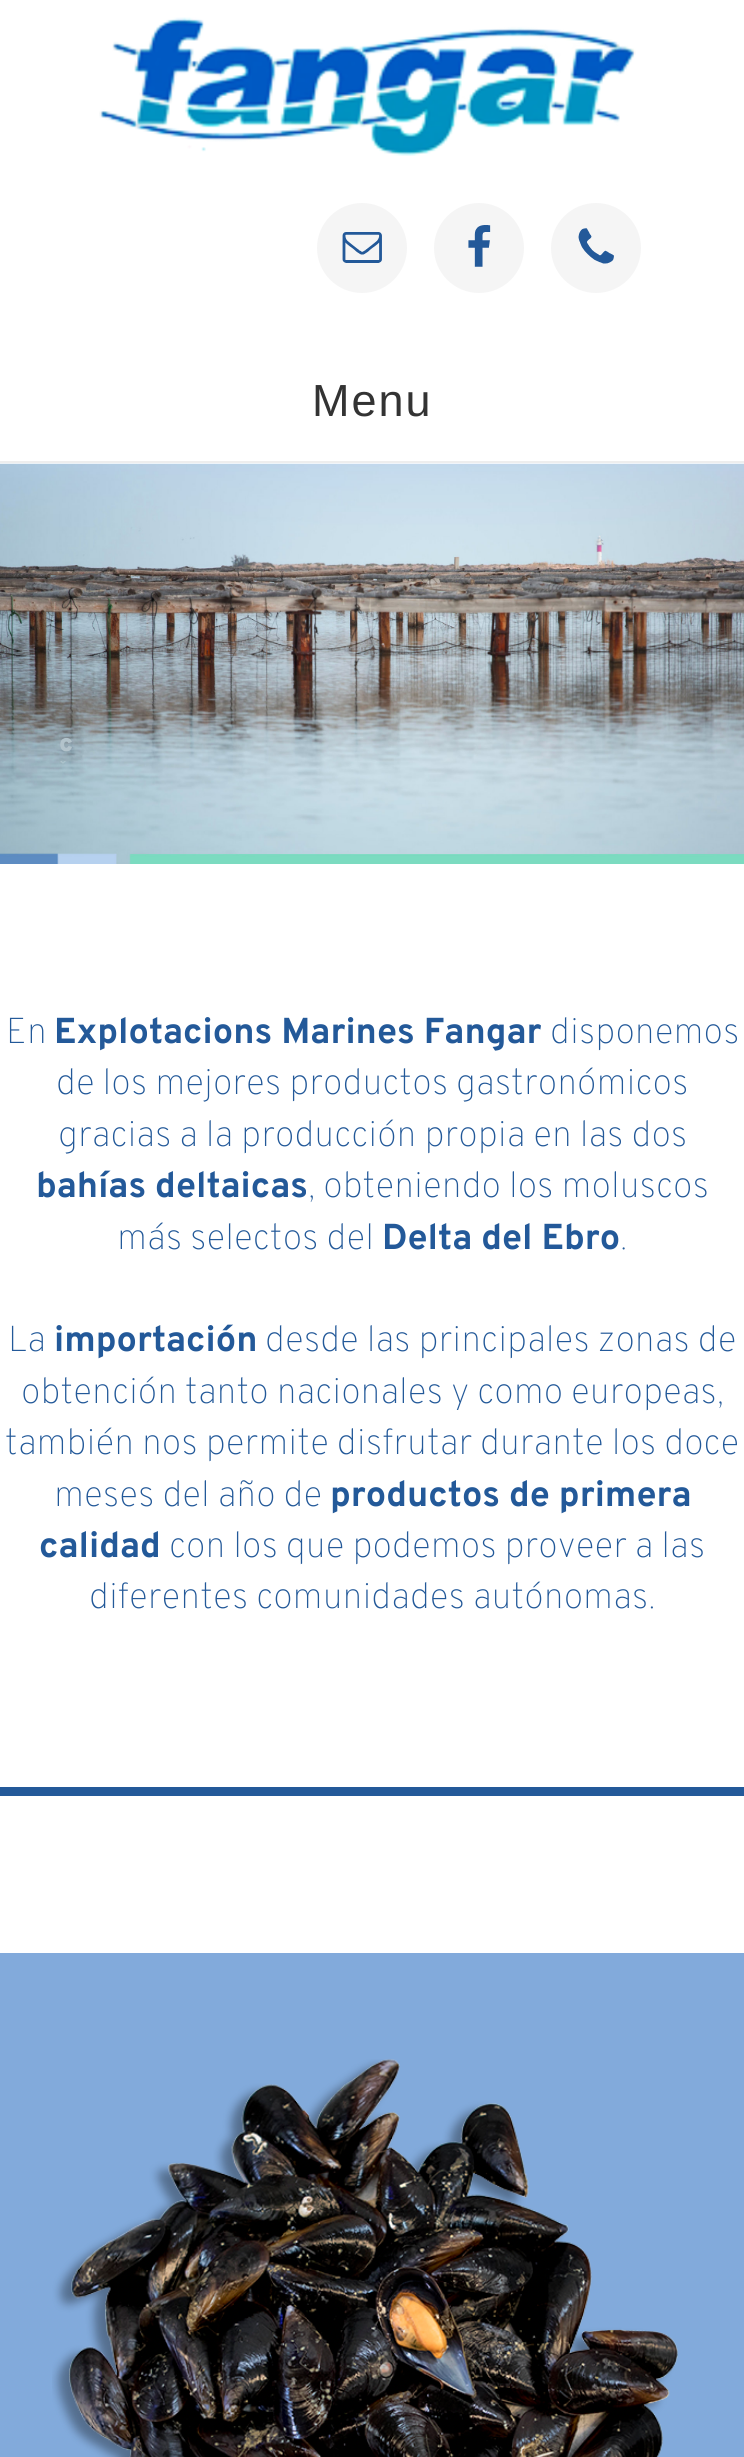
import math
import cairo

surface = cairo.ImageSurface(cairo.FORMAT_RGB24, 744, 2457)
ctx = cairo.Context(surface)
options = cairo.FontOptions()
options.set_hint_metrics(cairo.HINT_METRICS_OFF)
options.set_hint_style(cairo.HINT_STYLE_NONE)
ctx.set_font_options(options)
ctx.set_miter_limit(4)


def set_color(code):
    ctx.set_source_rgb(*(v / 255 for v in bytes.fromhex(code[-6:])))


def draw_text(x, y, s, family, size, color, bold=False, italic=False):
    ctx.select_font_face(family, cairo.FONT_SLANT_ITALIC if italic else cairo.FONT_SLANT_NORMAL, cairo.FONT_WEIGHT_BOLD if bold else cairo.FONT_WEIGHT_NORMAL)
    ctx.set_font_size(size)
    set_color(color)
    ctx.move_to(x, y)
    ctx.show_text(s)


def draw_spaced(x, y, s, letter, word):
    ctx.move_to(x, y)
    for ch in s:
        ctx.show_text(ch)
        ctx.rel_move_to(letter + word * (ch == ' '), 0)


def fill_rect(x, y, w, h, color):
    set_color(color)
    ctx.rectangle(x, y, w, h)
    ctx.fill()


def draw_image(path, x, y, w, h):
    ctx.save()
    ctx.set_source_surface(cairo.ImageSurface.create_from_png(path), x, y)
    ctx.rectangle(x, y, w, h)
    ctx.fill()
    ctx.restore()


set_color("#ffffff")
ctx.paint()
fill_rect(0, 461, 744, 2, "#eeeeee")
draw_image("assets/img1.png", 99, 17, 537, 139)
set_color("#f5f5f5")
ctx.arc(362, 248, 45, 0, 2 * math.pi)
ctx.fill()
draw_image("assets/img2.png", 342, 232, 40, 31)
ctx.arc(479, 248, 45, 0, 2 * math.pi)
ctx.fill()
draw_image("assets/img3.png", 468, 225, 23, 42)
ctx.arc(596, 248, 45, 0, 2 * math.pi)
ctx.fill()
draw_image("assets/img4.png", 578, 228, 36, 36)
ctx.select_font_face("Liberation Sans")
ctx.set_font_size(45)
set_color("#333333")
draw_spaced(312, 416, "Menu", 2, 0)
draw_image("assets/img5.png", 0, 463, 744, 401)
ctx.select_font_face("Overpass Black")
ctx.set_font_size(25)
set_color("#b3c3cb")
draw_spaced(59, 751, "c", -2, 0)
draw_image("assets/img6.png", 60, 761, 6, 3)
draw_text(6, 1043, "En", "Overpass Thin", 36, "#235999")
draw_text(54, 1043, "Explotacions Marines Fangar", "Overpass", 36, "#235999", bold=True)
draw_text(550, 1043, "disponemos", "Overpass Thin", 36, "#235999")
draw_text(56, 1094, "de los mejores productos gastronómicos", "Overpass Thin", 36, "#235999")
draw_text(58, 1146, "gracias a la producción propia en las dos", "Overpass Thin", 36, "#235999")
draw_text(36, 1197, "bahías deltaicas", "Overpass", 36, "#235999", bold=True)
draw_text(308, 1197, ", obteniendo los moluscos", "Overpass Thin", 36, "#235999")
draw_text(117, 1249, "más selectos del", "Overpass Thin", 36, "#235999")
draw_text(382, 1249, "Delta del Ebro", "Overpass", 36, "#235999", bold=True)
draw_text(620, 1249, ".", "Overpass Thin", 36, "#235999")
draw_text(8, 1351, "La", "Overpass Thin", 36, "#235999")
draw_text(54, 1351, "importación", "Overpass", 36, "#235999", bold=True)
draw_text(265, 1351, "desde las principales zonas de", "Overpass Thin", 36, "#235999")
draw_text(21, 1403, "obtención tanto nacionales y como europeas,", "Overpass Thin", 36, "#235999")
draw_text(5, 1454, "también nos permite disfrutar durante los doce", "Overpass Thin", 36, "#235999")
draw_text(54, 1506, "meses del año de", "Overpass Thin", 36, "#235999")
draw_text(330, 1506, "productos de primera", "Overpass", 36, "#235999", bold=True)
draw_text(39, 1557, "calidad", "Overpass", 36, "#235999", bold=True)
draw_text(169, 1557, "con los que podemos proveer a las", "Overpass Thin", 36, "#235999")
draw_text(89, 1608, "diferentes comunidades autónomas.", "Overpass Thin", 36, "#235999")
fill_rect(0, 1787, 744, 9, "#235999")
fill_rect(0, 1953, 744, 504, "#82aadb")
draw_image("assets/img7.png", 52, 2059, 626, 398)
surface.write_to_png("output.png")
